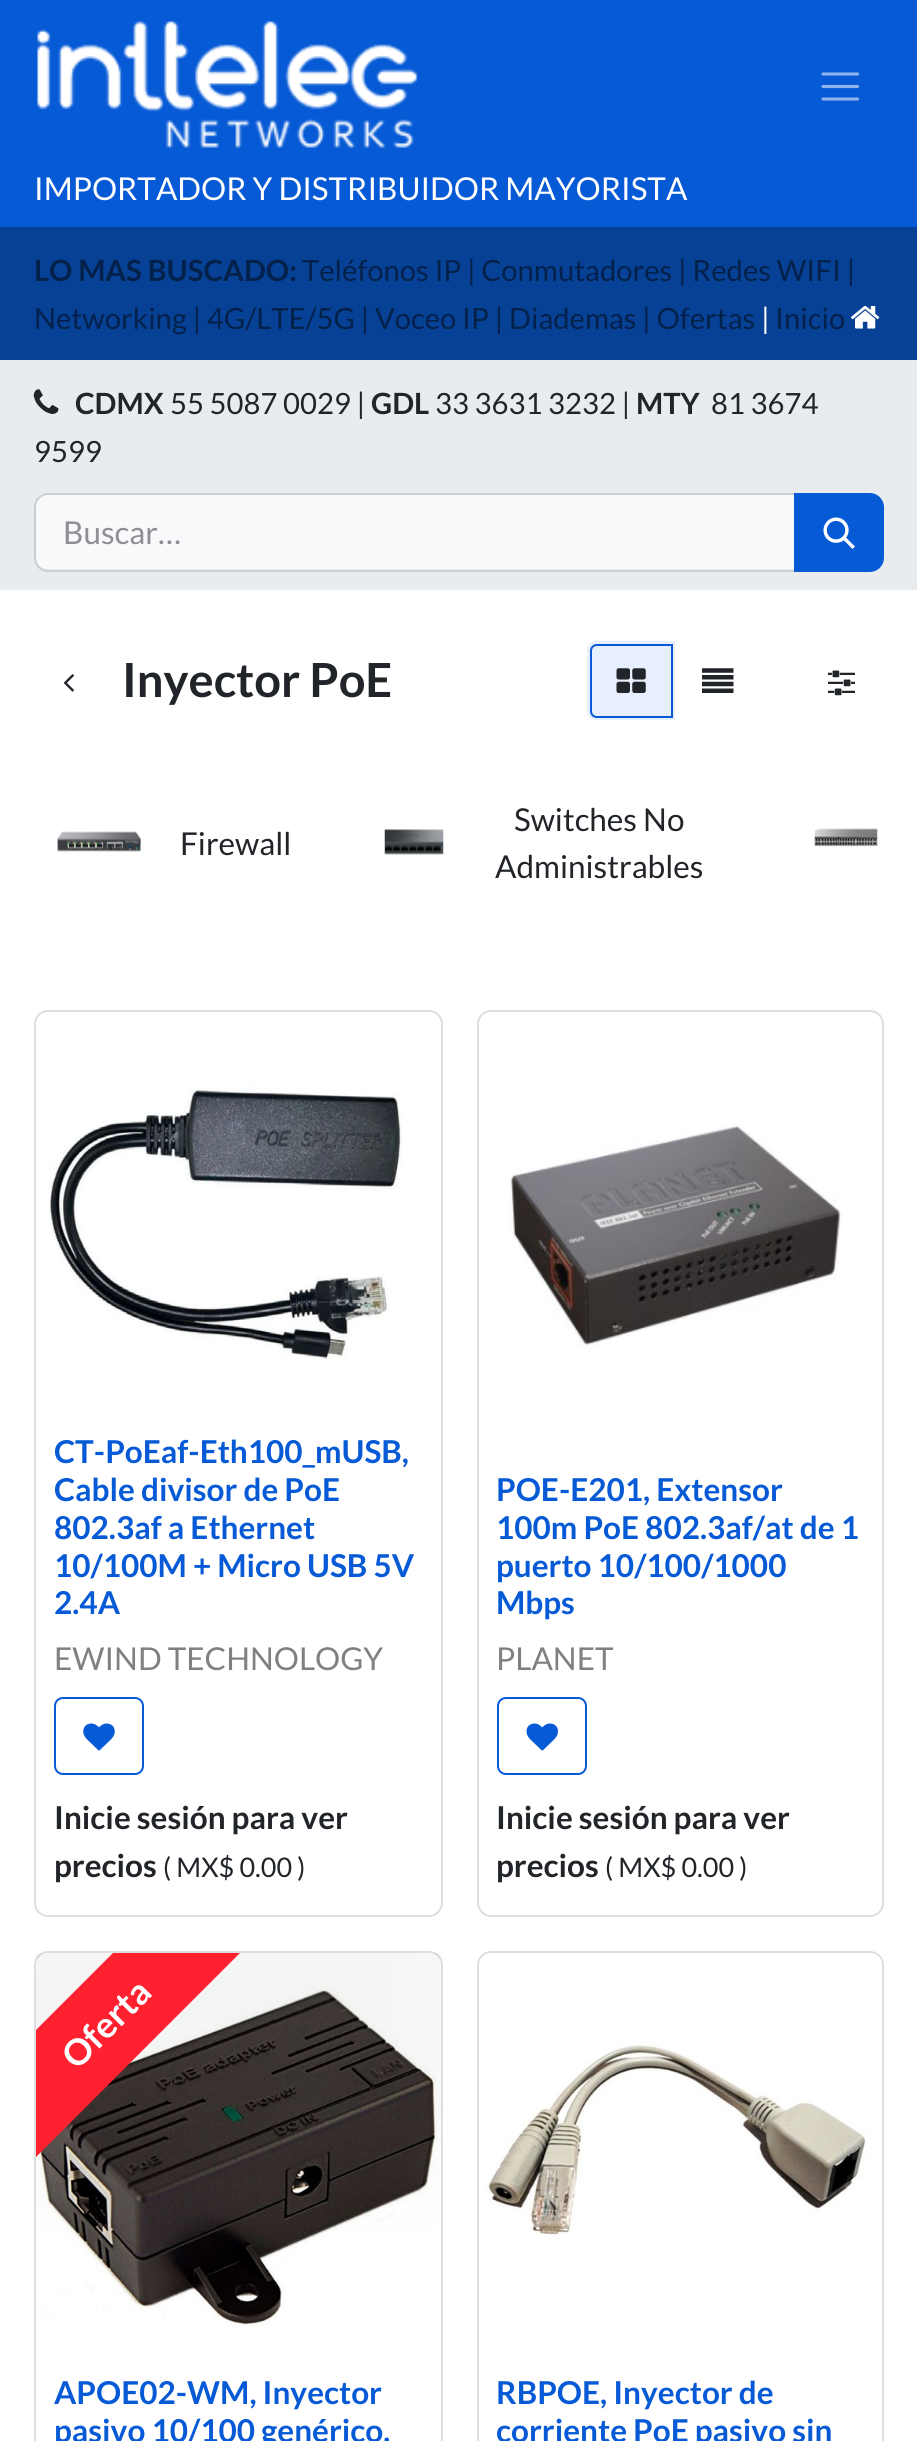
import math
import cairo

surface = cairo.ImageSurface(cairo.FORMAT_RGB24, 917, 2441)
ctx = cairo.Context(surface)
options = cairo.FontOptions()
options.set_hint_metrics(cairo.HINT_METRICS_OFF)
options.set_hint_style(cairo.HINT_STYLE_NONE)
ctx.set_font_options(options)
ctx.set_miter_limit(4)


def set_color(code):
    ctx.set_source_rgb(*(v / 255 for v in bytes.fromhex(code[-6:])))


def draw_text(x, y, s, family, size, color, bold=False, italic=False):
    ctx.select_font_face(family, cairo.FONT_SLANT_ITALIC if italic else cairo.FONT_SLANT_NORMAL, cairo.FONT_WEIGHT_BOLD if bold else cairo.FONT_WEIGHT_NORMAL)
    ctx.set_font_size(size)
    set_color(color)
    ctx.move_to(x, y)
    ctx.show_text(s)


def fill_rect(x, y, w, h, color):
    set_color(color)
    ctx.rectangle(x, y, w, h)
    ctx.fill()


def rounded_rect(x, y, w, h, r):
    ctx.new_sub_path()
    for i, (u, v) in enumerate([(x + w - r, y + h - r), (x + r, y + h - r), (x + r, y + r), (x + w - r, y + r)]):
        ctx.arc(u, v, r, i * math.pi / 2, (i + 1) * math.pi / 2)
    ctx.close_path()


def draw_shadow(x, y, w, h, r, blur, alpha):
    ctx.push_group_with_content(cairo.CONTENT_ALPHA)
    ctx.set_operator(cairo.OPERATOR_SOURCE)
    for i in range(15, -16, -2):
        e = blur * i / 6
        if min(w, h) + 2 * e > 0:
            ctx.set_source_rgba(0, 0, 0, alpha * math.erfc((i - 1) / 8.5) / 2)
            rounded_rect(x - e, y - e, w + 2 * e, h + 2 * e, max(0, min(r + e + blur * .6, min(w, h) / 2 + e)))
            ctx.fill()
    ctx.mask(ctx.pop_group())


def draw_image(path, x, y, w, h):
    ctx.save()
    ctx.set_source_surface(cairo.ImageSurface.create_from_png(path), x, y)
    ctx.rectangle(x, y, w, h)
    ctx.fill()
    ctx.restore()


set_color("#ffffff")
ctx.paint()
fill_rect(0, 0, 917, 227, "#075ad5")
draw_image("assets/img1.png", 37, 21, 381, 127)
ctx.new_path()
ctx.move_to(823, 74)
ctx.line_to(857.5, 74)
ctx.move_to(823, 86.5)
ctx.line_to(857.5, 86.5)
ctx.move_to(823, 99)
ctx.line_to(857.5, 99)
set_color("#8fb5ec")
ctx.set_line_width(3.1)
ctx.set_line_cap(cairo.LINE_CAP_ROUND)
ctx.stroke()
draw_text(34, 200, "IMPORTADOR Y DISTRIBUIDOR MAYORISTA", "Lato", 31.5, "#ffffff")
fill_rect(0, 227, 917, 133, "#074195")
draw_text(34, 281, "LO MAS BUSCADO:", "Lato", 29.25, "#04214b", bold=True)
draw_text(302, 281, "Teléfonos IP | Conmutadores | Redes WIFI |", "Lato", 29.25, "#04214b")
draw_text(34, 329, "Networking | 4G/LTE/5G | Voceo IP | Diademas | Ofertas", "Lato", 29.25, "#04214b")
draw_text(761, 329, "|", "Lato", 29.25, "#ffffff")
draw_text(775, 329, "Inicio", "Lato", 29.25, "#04214b")
draw_image("assets/img2.png", 851, 306, 29, 23)
fill_rect(0, 360, 917, 230, "#e9ecef")
draw_image("assets/img3.png", 33, 389, 26, 25)
draw_text(75, 414, "CDMX", "Lato", 29.25, "#212529", bold=True)
draw_text(170, 414, "55 5087 0029 |", "Lato", 29.25, "#212529")
draw_text(371, 414, "GDL", "Lato", 29.25, "#212529", bold=True)
draw_text(435, 414, "33 3631 3232 |", "Lato", 29.25, "#212529")
draw_text(636, 414, "MTY", "Lato", 29.25, "#212529", bold=True)
draw_text(711, 414, "81 3674", "Lato", 29.25, "#212529")
draw_text(34, 462, "9599", "Lato", 29.25, "#212529")
set_color("#f8f9fa")
ctx.new_path()
ctx.move_to(47, 495)
ctx.line_to(794, 495)
ctx.line_to(794, 569)
ctx.line_to(47, 569)
ctx.curve_to(41, 569, 36, 564, 36, 558)
ctx.line_to(36, 506)
ctx.curve_to(36, 500, 41, 495, 47, 495)
ctx.close_path()
ctx.fill()
ctx.new_path()
ctx.move_to(48, 494)
ctx.line_to(796, 494)
ctx.line_to(796, 571)
ctx.line_to(48, 571)
ctx.curve_to(41, 571, 35, 565, 35, 558)
ctx.line_to(35, 507)
ctx.curve_to(35, 500, 41, 494, 48, 494)
ctx.close_path()
ctx.set_source_rgba(0.129, 0.145, 0.161, 0.15)
ctx.set_line_width(2)
ctx.set_line_cap(cairo.LINE_CAP_BUTT)
ctx.stroke()
draw_text(63, 544, "Buscar…", "Lato", 31.5, "#8d8f92")
set_color("#075ad5")
ctx.new_path()
ctx.move_to(795, 494)
ctx.line_to(870, 494)
ctx.curve_to(877, 494, 883, 500, 883, 507)
ctx.line_to(883, 558)
ctx.curve_to(883, 565, 877, 571, 870, 571)
ctx.line_to(795, 571)
ctx.close_path()
ctx.fill_preserve()
ctx.stroke()
draw_image("assets/img4.png", 823, 517, 32, 32)
draw_image("assets/img5.png", 63, 674, 11, 18)
draw_text(122, 697, "Inyector PoE", "Lato", 47, "#212529", bold=True)
set_color("#e6effb")
ctx.new_path()
ctx.move_to(596, 641)
ctx.line_to(675, 641)
ctx.line_to(675, 720)
ctx.line_to(596, 720)
ctx.curve_to(591, 720, 587, 716, 587, 711)
ctx.line_to(587, 650)
ctx.curve_to(587, 645, 591, 641, 596, 641)
ctx.close_path()
ctx.fill()
ctx.new_path()
ctx.move_to(597, 645)
ctx.line_to(672, 645)
ctx.line_to(672, 717)
ctx.line_to(597, 717)
ctx.curve_to(593.5, 717, 591, 714.5, 591, 711)
ctx.line_to(591, 651)
ctx.curve_to(591, 647.5, 593.5, 645, 597, 645)
ctx.close_path()
set_color("#075ad5")
ctx.stroke()
draw_image("assets/img6.png", 616, 668, 30, 25)
draw_image("assets/img7.png", 702, 668, 32, 25)
draw_image("assets/img8.png", 828, 670, 27, 26)
draw_image("assets/img9.png", 57, 831, 87, 22)
draw_text(180, 855, "Firewall", "Lato", 31.5, "#212529")
draw_image("assets/img10.png", 384, 829, 60, 26)
draw_text(514, 831, "Switches No", "Lato", 31.5, "#212529")
draw_text(495, 878, "Administrables", "Lato", 31.5, "#212529")
draw_image("assets/img11.png", 814, 828, 64, 19)
rounded_rect(35, 1011, 407, 905, 13)
set_color("#dededf")
ctx.stroke()
draw_image("assets/img12.png", 36, 1018, 367, 341)
draw_text(54, 1463, "CT-PoEaf-Eth100_mUSB,", "Lato", 31.5, "#075ad5", bold=True)
draw_text(54, 1501, "Cable divisor de PoE", "Lato", 31.5, "#075ad5", bold=True)
draw_text(54, 1539, "802.3af a Ethernet", "Lato", 31.5, "#075ad5", bold=True)
draw_text(54, 1577, "10/100M + Micro USB 5V", "Lato", 31.5, "#075ad5", bold=True)
draw_text(54, 1614, "2.4A", "Lato", 31.5, "#075ad5", bold=True)
draw_text(54, 1670, "EWIND TECHNOLOGY", "Lato", 31.5, "#808080")
rounded_rect(55, 1698, 88, 76, 8)
set_color("#075ad5")
ctx.stroke()
draw_image("assets/img13.png", 83, 1723, 32, 28)
draw_text(54, 1829, "Inicie sesión para ver", "Lato", 31.5, "#212529", bold=True)
draw_text(54, 1877, "precios", "Lato", 31.5, "#212529", bold=True)
draw_text(163, 1877, "( MX$ 0.00 )", "Lato", 27, "#212529")
rounded_rect(478, 1011, 405, 905, 13)
set_color("#dededf")
ctx.stroke()
draw_image("assets/img14.png", 509, 1124, 333, 224)
draw_text(496, 1501, "POE-E201, Extensor", "Lato", 31.5, "#075ad5", bold=True)
draw_text(496, 1539, "100m PoE 802.3af/at de 1", "Lato", 31.5, "#075ad5", bold=True)
draw_text(496, 1577, "puerto 10/100/1000", "Lato", 31.5, "#075ad5", bold=True)
draw_text(496, 1614, "Mbps", "Lato", 31.5, "#075ad5", bold=True)
draw_text(496, 1670, "PLANET", "Lato", 31.5, "#808080")
rounded_rect(498, 1698, 88, 76, 8)
set_color("#075ad5")
ctx.stroke()
draw_image("assets/img15.png", 526, 1723, 32, 28)
draw_text(496, 1829, "Inicie sesión para ver", "Lato", 31.5, "#212529", bold=True)
draw_text(496, 1877, "precios", "Lato", 31.5, "#212529", bold=True)
draw_text(605, 1877, "( MX$ 0.00 )", "Lato", 27, "#212529")
rounded_rect(35, 1952, 407, 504, 13)
set_color("#dededf")
ctx.stroke()
draw_image("assets/img16.png", 36, 1953, 405, 373)
ctx.save()
ctx.rectangle(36, 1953, 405, 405)
ctx.clip()
set_color("#000000")
draw_shadow(-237, 1888, 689, 225, 0, 79, 0.05)
ctx.restore()
ctx.save()
ctx.rectangle(36, 1953, 405, 405)
ctx.clip()
set_color("#ff212f")
ctx.new_path()
ctx.move_to(-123, 2189)
ctx.line_to(272, 1794)
ctx.line_to(335, 1858)
ctx.line_to(-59, 2252)
ctx.close_path()
ctx.fill()
ctx.restore()
ctx.save()
ctx.translate(77, 2071)
ctx.rotate(-45 * math.pi / 180)
draw_text(0, 0, "Oferta", "Lato", 36, "#ffffff", bold=True)
ctx.restore()
draw_text(54, 2404, "APOE02-WM, Inyector", "Lato", 31.5, "#075ad5", bold=True)
draw_text(54, 2442, "pasivo 10/100 genérico.", "Lato", 31.5, "#075ad5", bold=True)
rounded_rect(478, 1952, 405, 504, 13)
set_color("#dededf")
ctx.stroke()
draw_image("assets/img17.png", 480, 1953, 402, 283)
draw_text(496, 2404, "RBPOE, Inyector de", "Lato", 31.5, "#075ad5", bold=True)
draw_text(496, 2442, "corriente PoE pasivo sin", "Lato", 31.5, "#075ad5", bold=True)
surface.write_to_png("output.png")
